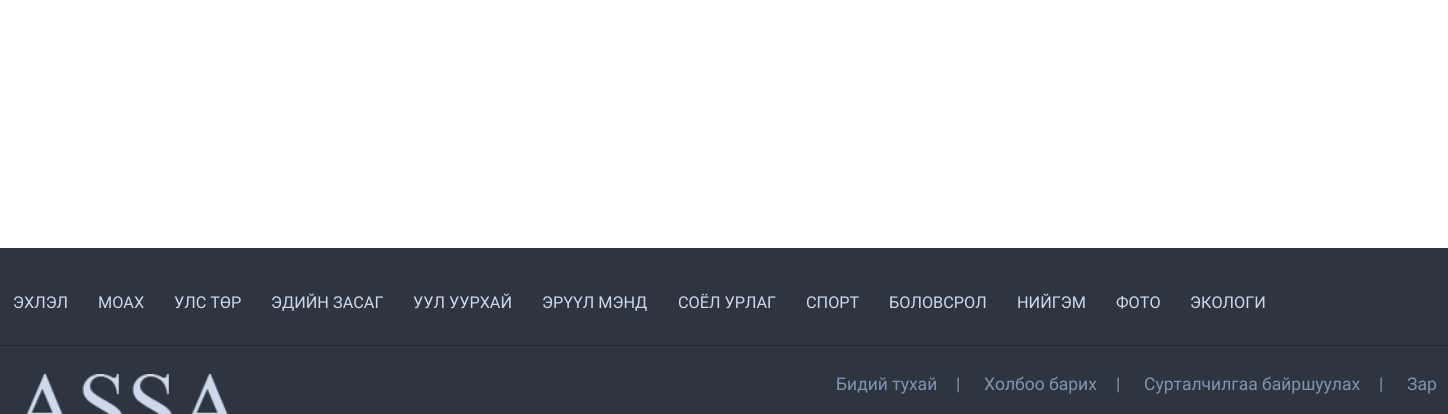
import math
import cairo

surface = cairo.ImageSurface(cairo.FORMAT_RGB24, 1448, 414)
ctx = cairo.Context(surface)
options = cairo.FontOptions()
options.set_hint_metrics(cairo.HINT_METRICS_OFF)
options.set_hint_style(cairo.HINT_STYLE_NONE)
ctx.set_font_options(options)
ctx.set_miter_limit(4)


def set_color(code):
    ctx.set_source_rgb(*(v / 255 for v in bytes.fromhex(code[-6:])))


def draw_text(x, y, s, family, size, color, bold=False, italic=False):
    ctx.select_font_face(family, cairo.FONT_SLANT_ITALIC if italic else cairo.FONT_SLANT_NORMAL, cairo.FONT_WEIGHT_BOLD if bold else cairo.FONT_WEIGHT_NORMAL)
    ctx.set_font_size(size)
    set_color(color)
    ctx.move_to(x, y)
    ctx.show_text(s)


def fill_rect(x, y, w, h, color):
    set_color(color)
    ctx.rectangle(x, y, w, h)
    ctx.fill()


def draw_image(path, x, y, w, h):
    ctx.save()
    ctx.set_source_surface(cairo.ImageSurface.create_from_png(path), x, y)
    ctx.rectangle(x, y, w, h)
    ctx.fill()
    ctx.restore()


set_color("#ffffff")
ctx.paint()
fill_rect(0, 248, 1448, 166, "#2d3540")
fill_rect(0, 345, 1448, 1, "#1d2530")
draw_text(13, 308, "ЭХЛЭЛ", "Roboto", 16.25, "#cedaeb")
draw_text(98, 308, "МОАХ", "Roboto", 16.25, "#cedaeb")
draw_text(174, 308, "УЛС ТӨР", "Roboto", 16.25, "#cedaeb")
draw_text(271, 308, "ЭДИЙН ЗАСАГ", "Roboto", 16.25, "#cedaeb")
draw_text(413, 308, "УУЛ УУРХАЙ", "Roboto", 16.25, "#cedaeb")
draw_text(542, 308, "ЭРҮҮЛ МЭНД", "Roboto", 16.25, "#cedaeb")
draw_text(678, 308, "СОЁЛ УРЛАГ", "Roboto", 16.25, "#cedaeb")
draw_text(806, 308, "СПОРТ", "Roboto", 16.25, "#cedaeb")
draw_text(889, 308, "БОЛОВСРОЛ", "Roboto", 16.25, "#cedaeb")
draw_text(1017, 308, "НИЙГЭМ", "Roboto", 16.25, "#cedaeb")
draw_text(1116, 308, "ФОТО", "Roboto", 16.25, "#cedaeb")
draw_text(1190, 308, "ЭКОЛОГИ", "Roboto", 16.25, "#cedaeb")
draw_image("assets/img1.png", 26, 374, 202, 40)
draw_text(836, 390, "Бидий тухай", "Roboto", 17.5, "#8194af")
draw_text(956, 390, "|", "Roboto", 17.5, "#8194af")
draw_text(984, 390, "Холбоо барих", "Roboto", 17.5, "#8194af")
draw_text(1116, 390, "|", "Roboto", 17.5, "#8194af")
draw_text(1144, 390, "Сурталчилгаа байршуулах", "Roboto", 17.5, "#8194af")
draw_text(1379, 390, "|", "Roboto", 17.5, "#8194af")
draw_text(1407, 390, "Зар", "Roboto", 17.5, "#8194af")
surface.write_to_png("output.png")
